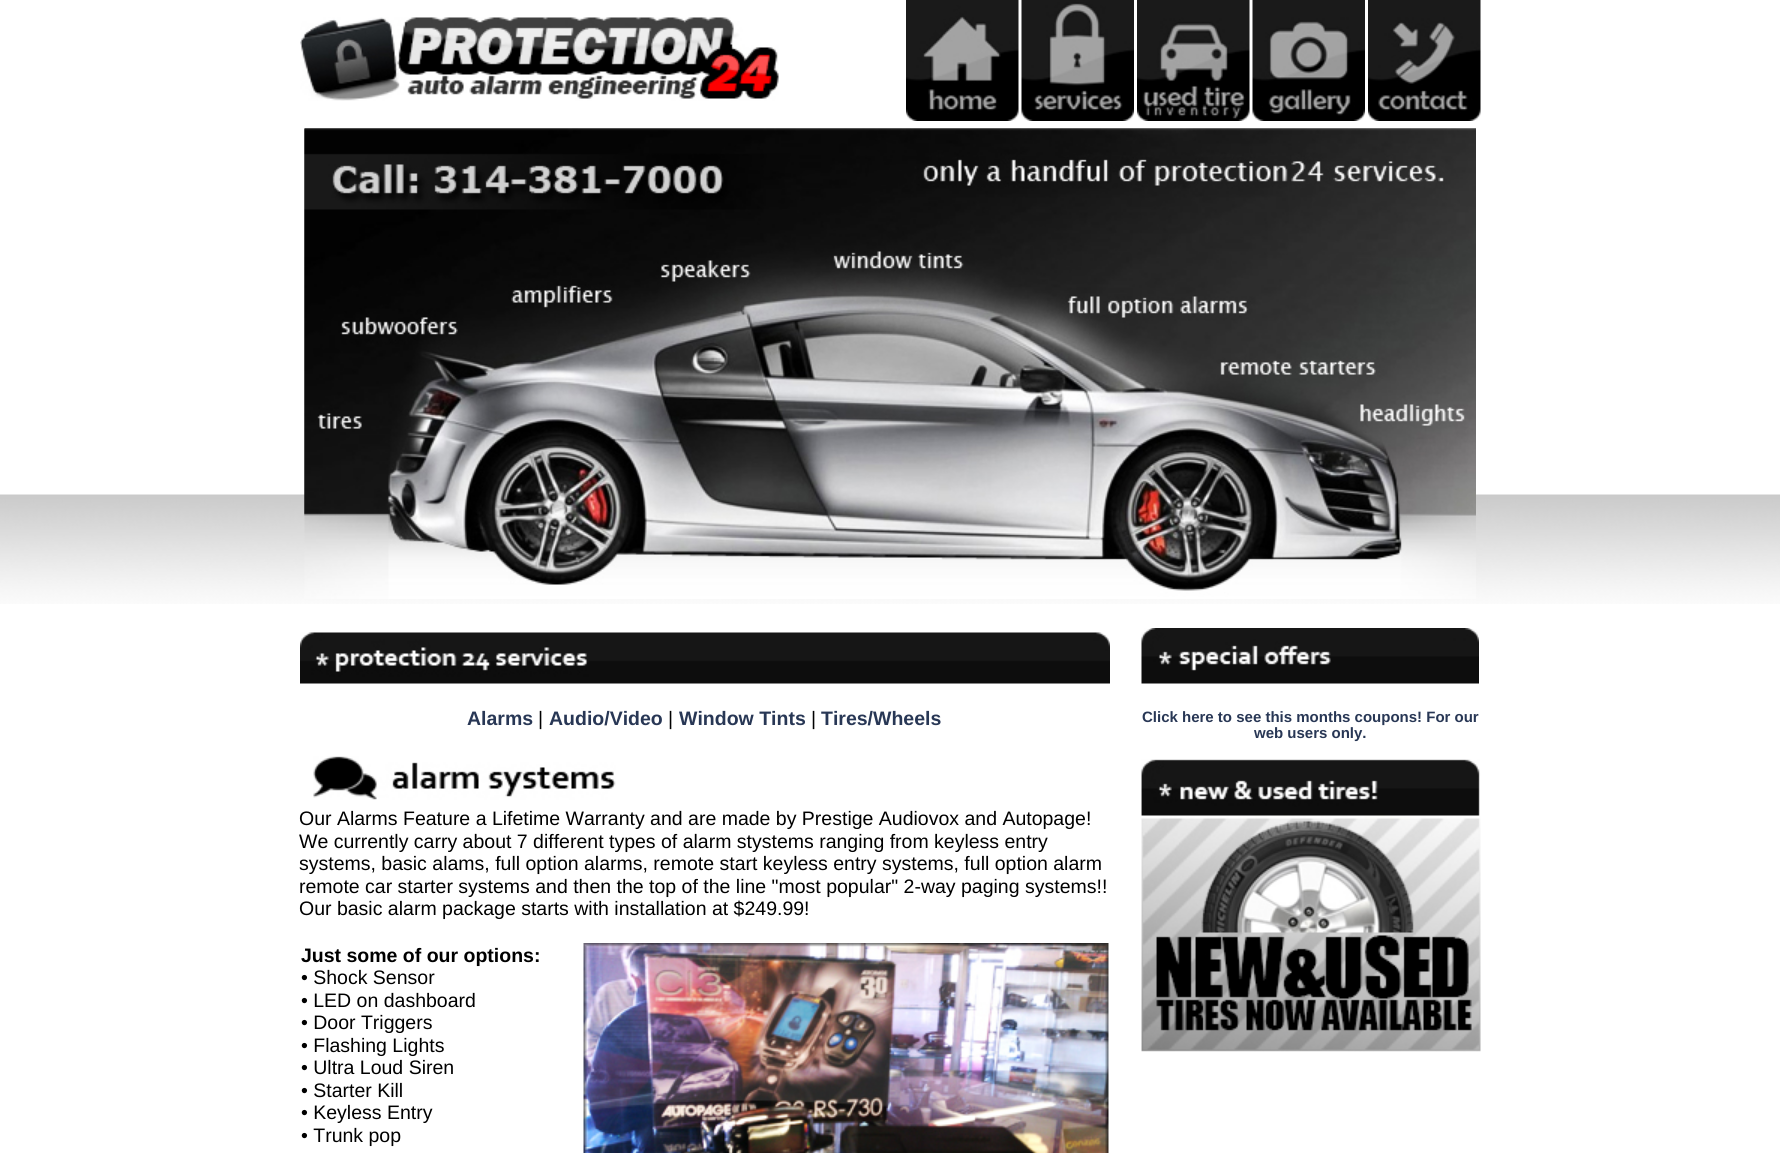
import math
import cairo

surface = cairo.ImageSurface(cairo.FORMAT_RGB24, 1780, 1153)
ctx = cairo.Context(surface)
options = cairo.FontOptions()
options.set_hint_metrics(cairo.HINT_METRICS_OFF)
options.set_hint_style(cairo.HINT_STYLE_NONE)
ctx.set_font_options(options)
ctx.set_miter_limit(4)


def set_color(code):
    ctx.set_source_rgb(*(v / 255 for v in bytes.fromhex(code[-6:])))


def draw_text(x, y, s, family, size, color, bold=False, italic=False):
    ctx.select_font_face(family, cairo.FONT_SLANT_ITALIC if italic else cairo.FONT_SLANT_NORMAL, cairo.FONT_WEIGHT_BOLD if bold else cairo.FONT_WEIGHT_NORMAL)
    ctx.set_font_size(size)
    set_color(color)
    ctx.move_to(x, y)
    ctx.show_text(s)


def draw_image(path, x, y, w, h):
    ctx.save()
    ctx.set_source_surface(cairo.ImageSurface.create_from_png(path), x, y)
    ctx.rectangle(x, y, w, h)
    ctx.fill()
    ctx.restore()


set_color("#ffffff")
ctx.paint()
draw_image("assets/img1.png", 300, 17, 479, 84)
draw_image("assets/img2.png", 906, 0, 113, 121)
draw_image("assets/img3.png", 1021, 0, 113, 121)
draw_image("assets/img4.png", 1137, 0, 113, 121)
draw_image("assets/img5.png", 1252, 0, 113, 121)
draw_image("assets/img6.png", 1368, 0, 113, 121)
draw_image("assets/img7.png", 0, 494, 1780, 110)
draw_image("assets/img8.png", 304, 128, 1172, 471)
draw_image("assets/img9.png", 304, 128, 1172, 388)
draw_image("assets/img10.png", 300, 632, 810, 52)
draw_text(467, 725, "Alarms", "Liberation Sans", 19.5, "#283755", bold=True)
draw_text(538, 725, "|", "Liberation Sans", 19.5, "#000000")
draw_text(549, 725, "Audio/Video", "Liberation Sans", 19.5, "#283755", bold=True)
draw_text(668, 725, "|", "Liberation Sans", 19.5, "#000000")
draw_text(679, 725, "Window Tints", "Liberation Sans", 19.5, "#283755", bold=True)
draw_text(811, 725, "|", "Liberation Sans", 19.5, "#000000")
draw_text(821, 725, "Tires/Wheels", "Liberation Sans", 19.5, "#283755", bold=True)
draw_image("assets/img11.png", 313, 756, 303, 44)
draw_text(299, 825, "Our Alarms Feature a Lifetime Warranty and are made by Prestige Audiovox and Autopage!", "Liberation Sans", 19.5, "#000000")
draw_text(299, 848, "We currently carry about 7 different types of alarm stystems ranging from keyless entry", "Liberation Sans", 19.5, "#000000")
draw_text(299, 870, "systems, basic alams, full option alarms, remote start keyless entry systems, full option alarm", "Liberation Sans", 19.5, "#000000")
draw_text(299, 893, "remote car starter systems and then the top of the line \"most popular\" 2-way paging systems!!", "Liberation Sans", 19.5, "#000000")
draw_text(299, 915, "Our basic alarm package starts with installation at $249.99!", "Liberation Sans", 19.5, "#000000")
draw_text(301, 962, "Just some of our options:", "Liberation Sans", 19.5, "#000000", bold=True)
draw_text(301, 984, "• Shock Sensor", "Liberation Sans", 19.5, "#000000")
draw_text(301, 1007, "• LED on dashboard", "Liberation Sans", 19.5, "#000000")
draw_text(301, 1029, "• Door Triggers", "Liberation Sans", 19.5, "#000000")
draw_text(301, 1052, "• Flashing Lights", "Liberation Sans", 19.5, "#000000")
draw_text(301, 1074, "• Ultra Loud Siren", "Liberation Sans", 19.5, "#000000")
draw_text(301, 1097, "• Starter Kill", "Liberation Sans", 19.5, "#000000")
draw_text(301, 1119, "• Keyless Entry", "Liberation Sans", 19.5, "#000000")
draw_text(301, 1142, "• Trunk pop", "Liberation Sans", 19.5, "#000000")
draw_image("assets/img12.png", 583, 943, 526, 210)
draw_image("assets/img13.png", 1141, 628, 338, 56)
draw_text(1142, 722, "Click here to see this months coupons! For our", "Liberation Sans", 15, "#283755", bold=True)
draw_text(1254, 738, "web users only.", "Liberation Sans", 15, "#283755", bold=True)
draw_image("assets/img14.png", 1141, 759, 340, 293)
surface.write_to_png("output.png")
